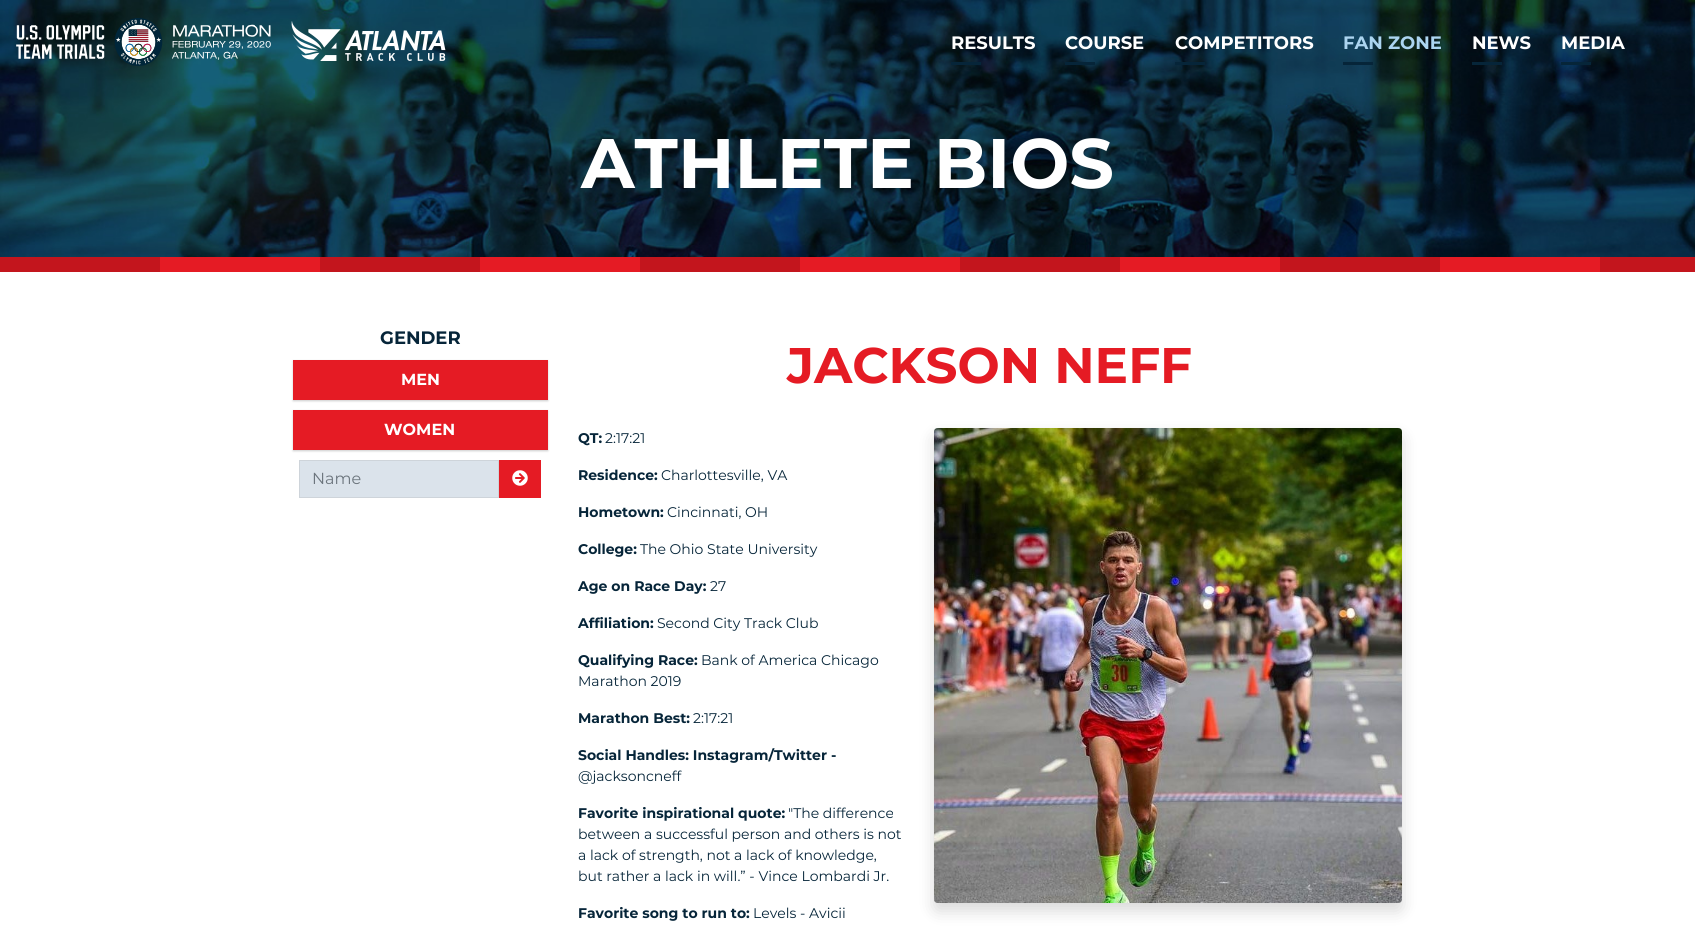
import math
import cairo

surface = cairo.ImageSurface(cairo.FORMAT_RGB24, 1695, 935)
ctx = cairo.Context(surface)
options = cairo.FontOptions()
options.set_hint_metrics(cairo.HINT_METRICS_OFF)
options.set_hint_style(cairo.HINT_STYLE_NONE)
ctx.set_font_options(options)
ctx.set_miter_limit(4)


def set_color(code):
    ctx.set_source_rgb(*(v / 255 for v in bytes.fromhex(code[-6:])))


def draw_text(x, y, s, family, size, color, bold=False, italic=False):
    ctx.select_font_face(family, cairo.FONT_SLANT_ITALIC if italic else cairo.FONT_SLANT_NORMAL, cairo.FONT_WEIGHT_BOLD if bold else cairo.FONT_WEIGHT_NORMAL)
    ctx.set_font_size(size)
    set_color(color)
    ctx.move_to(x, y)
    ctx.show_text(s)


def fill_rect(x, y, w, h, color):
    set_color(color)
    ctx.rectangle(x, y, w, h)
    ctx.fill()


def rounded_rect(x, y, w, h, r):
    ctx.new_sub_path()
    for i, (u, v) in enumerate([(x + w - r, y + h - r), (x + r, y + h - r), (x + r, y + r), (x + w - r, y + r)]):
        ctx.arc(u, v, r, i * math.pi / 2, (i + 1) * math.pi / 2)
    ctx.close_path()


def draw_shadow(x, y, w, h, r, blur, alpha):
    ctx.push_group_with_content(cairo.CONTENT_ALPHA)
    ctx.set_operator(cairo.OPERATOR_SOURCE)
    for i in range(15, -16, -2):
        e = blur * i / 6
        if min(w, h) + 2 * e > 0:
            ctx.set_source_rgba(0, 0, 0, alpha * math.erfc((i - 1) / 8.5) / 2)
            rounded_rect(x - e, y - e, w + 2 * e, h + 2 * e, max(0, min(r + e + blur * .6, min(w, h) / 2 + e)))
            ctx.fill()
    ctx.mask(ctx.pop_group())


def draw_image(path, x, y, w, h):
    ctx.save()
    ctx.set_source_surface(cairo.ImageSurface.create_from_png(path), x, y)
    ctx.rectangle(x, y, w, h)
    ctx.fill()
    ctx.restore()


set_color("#ffffff")
ctx.paint()
draw_image("assets/img1.png", 0, 0, 1695, 257)
draw_image("assets/img2.png", 16, 18, 255, 48)
draw_image("assets/img3.png", 291, 21, 155, 40)
draw_text(951, 49, "RESULTS", "Montserrat", 18, "#ffffff", bold=True)
fill_rect(951, 62, 30, 3, "#062539")
draw_text(1065, 49, "COURSE", "Montserrat", 18, "#ffffff", bold=True)
fill_rect(1065, 62, 30, 3, "#062539")
draw_text(1175, 49, "COMPETITORS", "Montserrat", 18, "#ffffff", bold=True)
fill_rect(1175, 62, 30, 3, "#062539")
draw_text(1343, 49, "FAN ZONE", "Montserrat", 18, "#acd5f0", bold=True)
fill_rect(1343, 62, 30, 3, "#062539")
draw_text(1472, 49, "NEWS", "Montserrat", 18, "#ffffff", bold=True)
fill_rect(1472, 62, 30, 3, "#062539")
draw_text(1561, 49, "MEDIA", "Montserrat", 18, "#ffffff", bold=True)
fill_rect(1561, 62, 30, 3, "#062539")
draw_text(581, 188, "ATHLETE BIOS", "Montserrat", 70, "#ffffff", bold=True)
draw_image("assets/img4.png", 0, 257, 1695, 15)
draw_text(380, 344, "GENDER", "Montserrat", 18, "#062539", bold=True)
set_color("#000000")
draw_shadow(293, 361, 255, 40, 0, 1, 0.2)
fill_rect(293, 360, 255, 40, "#e51b24")
draw_text(401, 385, "MEN", "Montserrat", 16, "#ffffff", bold=True)
set_color("#000000")
draw_shadow(293, 411, 255, 40, 0, 1, 0.2)
fill_rect(293, 410, 255, 40, "#e51b24")
draw_text(384, 435, "WOMEN", "Montserrat", 16, "#ffffff", bold=True)
set_color("#dbe3eb")
ctx.rectangle(299.5, 460.5, 199, 37)
ctx.fill_preserve()
set_color("#ced4da")
ctx.set_line_width(1)
ctx.stroke()
draw_text(312, 484, "Name", "Montserrat", 16, "#6c757d")
fill_rect(499, 460, 42, 38, "#e51b24")
draw_image("assets/img5.png", 512, 470, 16, 16)
draw_text(787, 383, "JACKSON NEFF", "Montserrat", 50, "#e51b24", bold=True)
draw_text(578, 443, "QT:", "Montserrat", 14, "#062539", bold=True)
draw_text(605, 443, "2:17:21", "Montserrat", 14, "#062539")
draw_text(578, 480, "Residence:", "Montserrat", 14, "#062539", bold=True)
draw_text(661, 480, "Charlottesville, VA", "Montserrat", 14, "#062539")
draw_text(578, 517, "Hometown:", "Montserrat", 14, "#062539", bold=True)
draw_text(667, 517, "Cincinnati, OH", "Montserrat", 14, "#062539")
draw_text(578, 554, "College:", "Montserrat", 14, "#062539", bold=True)
draw_text(640, 554, "The Ohio State University", "Montserrat", 14, "#062539")
draw_text(578, 591, "Age on Race Day:", "Montserrat", 14, "#062539", bold=True)
draw_text(710, 591, "27", "Montserrat", 14, "#062539")
draw_text(578, 628, "Affiliation:", "Montserrat", 14, "#062539", bold=True)
draw_text(657, 628, "Second City Track Club", "Montserrat", 14, "#062539")
draw_text(578, 665, "Qualifying Race:", "Montserrat", 14, "#062539", bold=True)
draw_text(701, 665, "Bank of America Chicago", "Montserrat", 14, "#062539")
draw_text(578, 686, "Marathon 2019", "Montserrat", 14, "#062539")
draw_text(578, 723, "Marathon Best:", "Montserrat", 14, "#062539", bold=True)
draw_text(693, 723, "2:17:21", "Montserrat", 14, "#062539")
draw_text(578, 760, "Social Handles: Instagram/Twitter -", "Montserrat", 14, "#062539", bold=True)
draw_text(578, 781, "@jacksoncneff", "Montserrat", 14, "#062539")
draw_text(578, 818, "Favorite inspirational quote:", "Montserrat", 14, "#062539", bold=True)
draw_text(788, 818, "\"The difference", "Montserrat", 14, "#062539")
draw_text(578, 839, "between a successful person and others is not", "Montserrat", 14, "#062539")
draw_text(578, 860, "a lack of strength, not a lack of knowledge,", "Montserrat", 14, "#062539")
draw_text(578, 881, "but rather a lack in will.” - Vince Lombardi Jr.", "Montserrat", 14, "#062539")
draw_text(578, 918, "Favorite song to run to:", "Montserrat", 14, "#062539", bold=True)
draw_text(753, 918, "Levels - Avicii", "Montserrat", 14, "#062539")
set_color("#000000")
draw_shadow(934, 436, 468, 475, 4, 8, 0.15)
draw_image("assets/img6.png", 934, 428, 468, 475)
surface.write_to_png("output.png")
